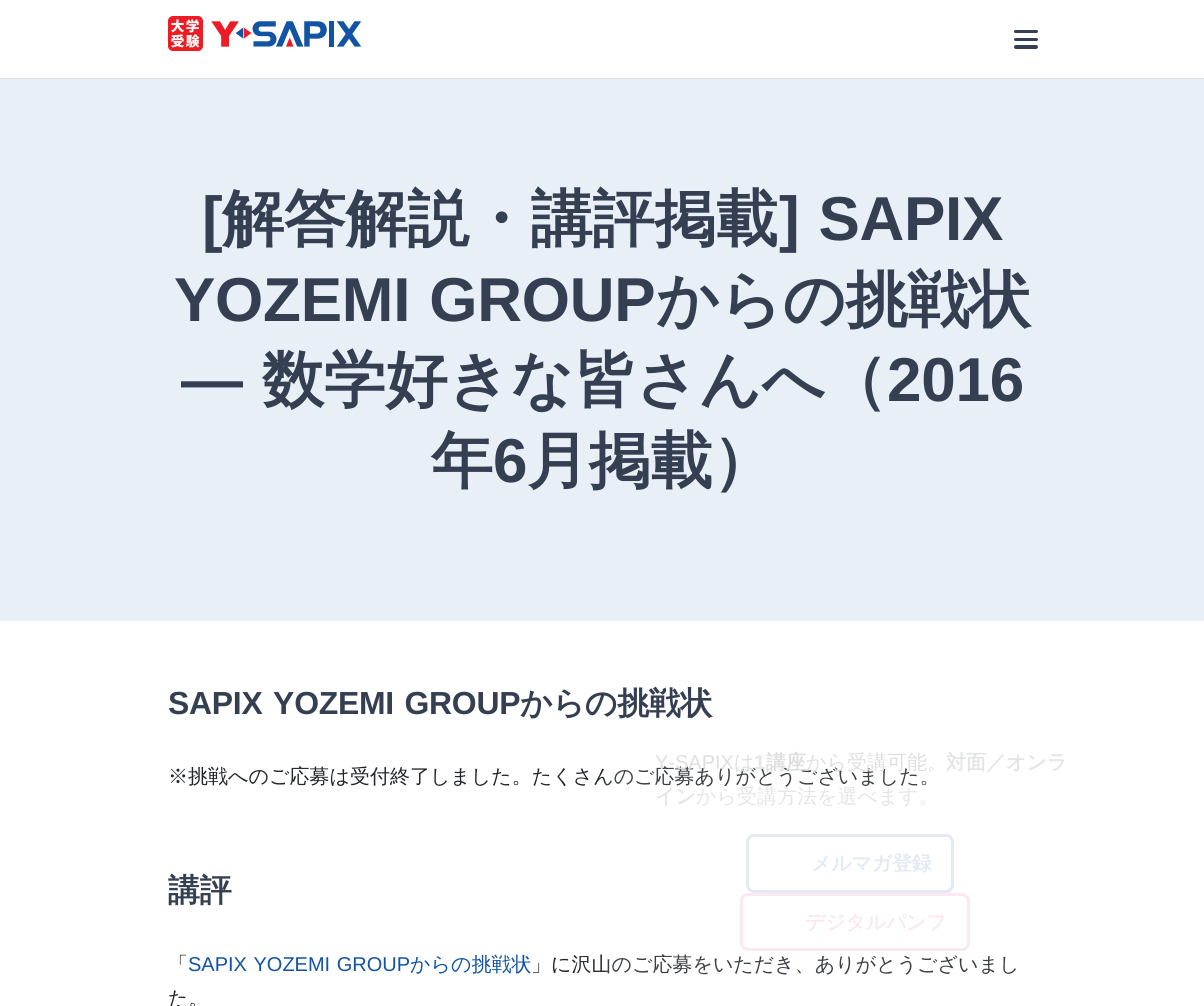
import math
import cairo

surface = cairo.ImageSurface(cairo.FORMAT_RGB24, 1204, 1006)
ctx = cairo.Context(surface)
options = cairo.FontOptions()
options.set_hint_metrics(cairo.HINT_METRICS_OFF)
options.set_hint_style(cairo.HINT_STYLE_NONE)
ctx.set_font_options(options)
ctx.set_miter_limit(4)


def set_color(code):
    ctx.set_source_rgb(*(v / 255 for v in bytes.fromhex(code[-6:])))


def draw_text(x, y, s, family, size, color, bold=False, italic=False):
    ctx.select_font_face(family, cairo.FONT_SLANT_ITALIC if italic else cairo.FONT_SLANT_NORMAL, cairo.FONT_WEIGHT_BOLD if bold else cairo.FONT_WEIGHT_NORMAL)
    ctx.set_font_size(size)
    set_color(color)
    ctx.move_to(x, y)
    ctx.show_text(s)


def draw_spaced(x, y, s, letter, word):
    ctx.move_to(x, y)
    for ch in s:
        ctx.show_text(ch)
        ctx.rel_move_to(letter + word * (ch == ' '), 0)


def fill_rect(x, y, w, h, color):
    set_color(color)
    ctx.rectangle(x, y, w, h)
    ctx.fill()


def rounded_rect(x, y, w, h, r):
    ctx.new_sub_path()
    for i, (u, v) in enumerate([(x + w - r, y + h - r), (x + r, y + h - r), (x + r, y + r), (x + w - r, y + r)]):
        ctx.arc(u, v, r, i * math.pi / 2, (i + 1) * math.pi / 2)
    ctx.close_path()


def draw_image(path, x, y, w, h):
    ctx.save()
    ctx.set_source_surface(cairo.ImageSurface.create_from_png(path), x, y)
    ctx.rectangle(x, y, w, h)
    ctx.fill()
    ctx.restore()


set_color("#ffffff")
ctx.paint()
fill_rect(0, 78, 1204, 1, "#dfe0e3")
draw_image("assets/img1.png", 168, 16, 193, 35)
set_color("#343f52")
rounded_rect(1014, 30, 24, 3, 1.5)
ctx.fill()
rounded_rect(1014, 38, 24, 3, 1.5)
ctx.fill()
rounded_rect(1014, 45, 24, 4, 2)
ctx.fill()
fill_rect(0, 79, 1204, 542, "#e8eff6")
ctx.select_font_face("Liberation Sans", cairo.FONT_SLANT_NORMAL, cairo.FONT_WEIGHT_BOLD)
ctx.set_font_size(62)
set_color("#343f52")
draw_spaced(202, 240, "[", -0.25, 0)
ctx.select_font_face("WenQuanYi Zen Hei", cairo.FONT_SLANT_NORMAL, cairo.FONT_WEIGHT_BOLD)
draw_spaced(222, 240, "解答解説・講評掲載", -0.25, 0)
ctx.select_font_face("Liberation Sans", cairo.FONT_SLANT_NORMAL, cairo.FONT_WEIGHT_BOLD)
draw_spaced(779, 240, "] SAPIX", -0.25, 2)
draw_spaced(174, 321, "YOZEMI GROUP", -0.25, 2)
ctx.select_font_face("WenQuanYi Zen Hei", cairo.FONT_SLANT_NORMAL, cairo.FONT_WEIGHT_BOLD)
draw_spaced(656, 321, "からの挑戦状", -0.25, 0)
ctx.select_font_face("Liberation Sans", cairo.FONT_SLANT_NORMAL, cairo.FONT_WEIGHT_BOLD)
draw_spaced(181, 401, "—", -0.25, 0)
ctx.select_font_face("WenQuanYi Zen Hei", cairo.FONT_SLANT_NORMAL, cairo.FONT_WEIGHT_BOLD)
draw_spaced(262, 401, "数学好きな皆さんへ（", -0.25, 0)
ctx.select_font_face("Liberation Sans", cairo.FONT_SLANT_NORMAL, cairo.FONT_WEIGHT_BOLD)
draw_spaced(887, 401, "2016", -0.25, 0)
ctx.select_font_face("WenQuanYi Zen Hei", cairo.FONT_SLANT_NORMAL, cairo.FONT_WEIGHT_BOLD)
draw_spaced(431, 482, "年", -0.25, 0)
ctx.select_font_face("Liberation Sans", cairo.FONT_SLANT_NORMAL, cairo.FONT_WEIGHT_BOLD)
draw_spaced(493, 482, "6", -0.25, 0)
ctx.select_font_face("WenQuanYi Zen Hei", cairo.FONT_SLANT_NORMAL, cairo.FONT_WEIGHT_BOLD)
draw_spaced(527, 482, "月掲載）", -0.25, 0)
ctx.select_font_face("Liberation Sans", cairo.FONT_SLANT_NORMAL, cairo.FONT_WEIGHT_BOLD)
ctx.set_font_size(31.9)
draw_spaced(168, 714, "SAPIX YOZEMI GROUP", -0.25, 2)
ctx.select_font_face("WenQuanYi Zen Hei", cairo.FONT_SLANT_NORMAL, cairo.FONT_WEIGHT_BOLD)
draw_spaced(520, 714, "からの挑戦状", -0.25, 0)
draw_text(168, 783, "※挑戦へのご応募は受付終了しました。たくさんのご応募ありがとうございました。", "WenQuanYi Zen Hei Medium", 20, "#212529")
ctx.select_font_face("WenQuanYi Zen Hei", cairo.FONT_SLANT_NORMAL, cairo.FONT_WEIGHT_BOLD)
ctx.set_font_size(31.9)
set_color("#343f52")
draw_spaced(168, 901, "講評", -0.25, 0)
draw_text(168, 971, "「", "WenQuanYi Zen Hei Medium", 20, "#212529")
ctx.select_font_face("Liberation Sans")
set_color("#1253a4")
draw_spaced(188, 971, "SAPIX YOZEMI GROUP", 0, 1)
draw_text(410, 971, "からの挑戦状", "WenQuanYi Zen Hei Medium", 20, "#1253a4")
draw_text(531, 971, "」に沢山のご応募をいただき、ありがとうございまし", "WenQuanYi Zen Hei Medium", 20, "#212529")
draw_text(168, 1005, "た。", "WenQuanYi Zen Hei Medium", 20, "#212529")
ctx.set_source_rgba(1, 1, 1, 0.12)
rounded_rect(605, 720, 500, 256, 8)
ctx.fill()
draw_text(655, 769, "Y-SAPIX", "Liberation Sans", 20, "#dedfdf")
draw_text(734, 769, "は", "WenQuanYi Zen Hei Medium", 20, "#dedfdf")
draw_text(754, 769, "1", "Liberation Sans", 20, "#e4e5e5", bold=True)
draw_text(766, 769, "講座", "WenQuanYi Zen Hei", 20, "#dedfdf", bold=True)
draw_text(806, 769, "から受講可能。", "WenQuanYi Zen Hei Medium", 20, "#dedfdf")
draw_text(946, 769, "対面／オンラ", "WenQuanYi Zen Hei", 20, "#e4e5e5", bold=True)
draw_text(655, 803, "イン", "WenQuanYi Zen Hei", 20, "#e4e5e5", bold=True)
draw_text(696, 803, "から受講方法を選べます。", "WenQuanYi Zen Hei Medium", 20, "#e4e5e5")
rounded_rect(747.5, 835.5, 205, 56, 6.5)
set_color("#e2eaf4")
ctx.set_line_width(3)
ctx.stroke()
ctx.select_font_face("WenQuanYi Zen Hei", cairo.FONT_SLANT_NORMAL, cairo.FONT_WEIGHT_BOLD)
draw_spaced(811, 870, "メルマガ登録", -0.25, 0)
rounded_rect(741.5, 894.5, 227, 55, 6.5)
set_color("#fce8f1")
ctx.stroke()
draw_spaced(805, 929, "デジタルパンフ", -0.25, 0)
surface.write_to_png("output.png")
